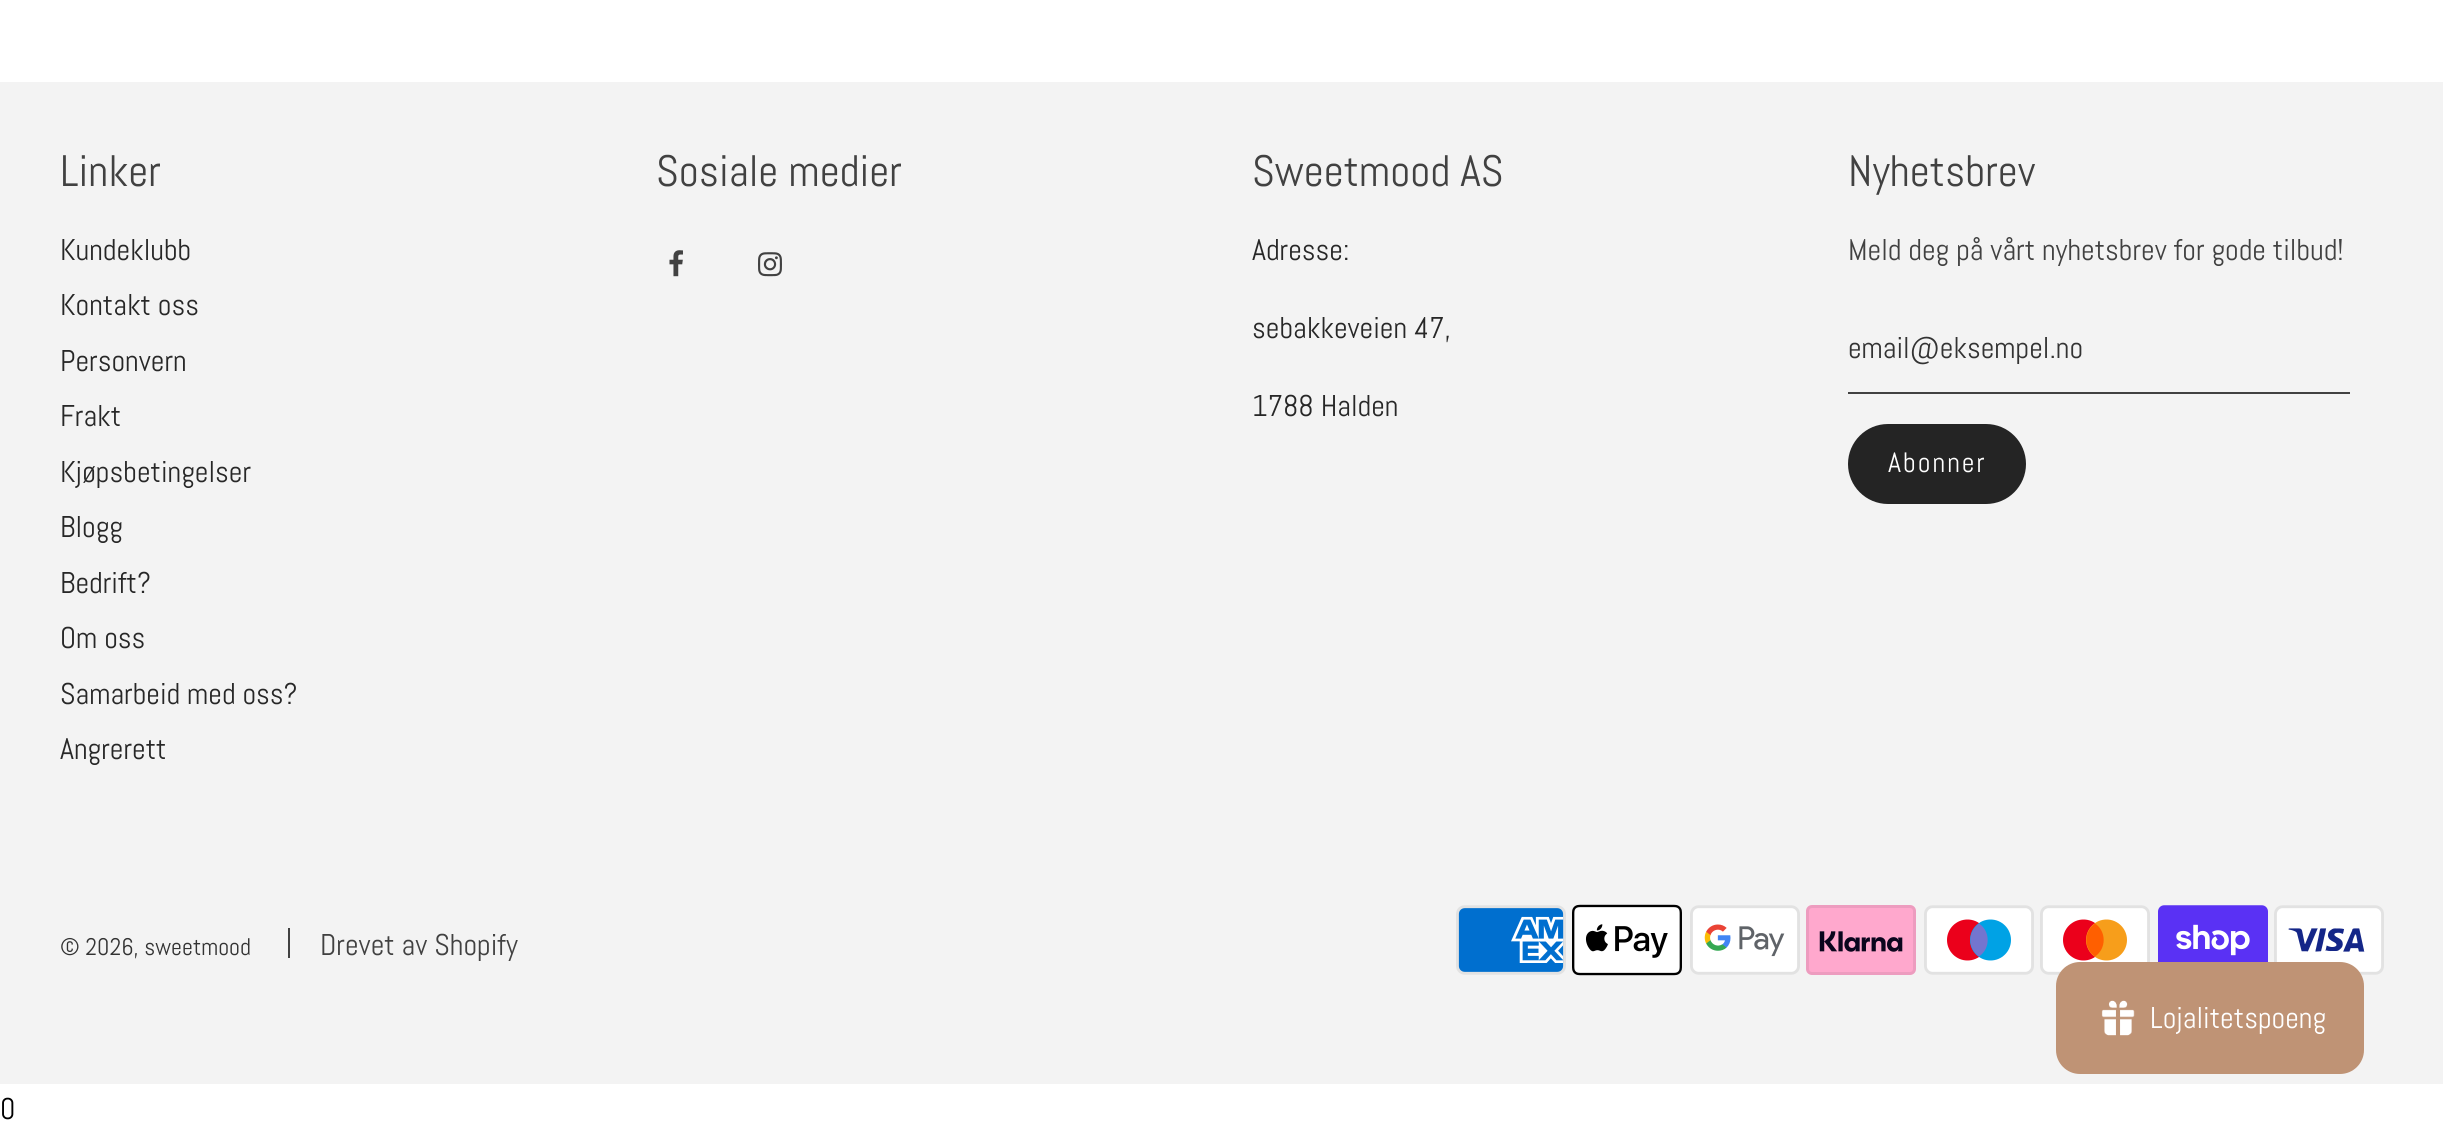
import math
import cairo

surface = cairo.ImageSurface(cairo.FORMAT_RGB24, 2443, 1121)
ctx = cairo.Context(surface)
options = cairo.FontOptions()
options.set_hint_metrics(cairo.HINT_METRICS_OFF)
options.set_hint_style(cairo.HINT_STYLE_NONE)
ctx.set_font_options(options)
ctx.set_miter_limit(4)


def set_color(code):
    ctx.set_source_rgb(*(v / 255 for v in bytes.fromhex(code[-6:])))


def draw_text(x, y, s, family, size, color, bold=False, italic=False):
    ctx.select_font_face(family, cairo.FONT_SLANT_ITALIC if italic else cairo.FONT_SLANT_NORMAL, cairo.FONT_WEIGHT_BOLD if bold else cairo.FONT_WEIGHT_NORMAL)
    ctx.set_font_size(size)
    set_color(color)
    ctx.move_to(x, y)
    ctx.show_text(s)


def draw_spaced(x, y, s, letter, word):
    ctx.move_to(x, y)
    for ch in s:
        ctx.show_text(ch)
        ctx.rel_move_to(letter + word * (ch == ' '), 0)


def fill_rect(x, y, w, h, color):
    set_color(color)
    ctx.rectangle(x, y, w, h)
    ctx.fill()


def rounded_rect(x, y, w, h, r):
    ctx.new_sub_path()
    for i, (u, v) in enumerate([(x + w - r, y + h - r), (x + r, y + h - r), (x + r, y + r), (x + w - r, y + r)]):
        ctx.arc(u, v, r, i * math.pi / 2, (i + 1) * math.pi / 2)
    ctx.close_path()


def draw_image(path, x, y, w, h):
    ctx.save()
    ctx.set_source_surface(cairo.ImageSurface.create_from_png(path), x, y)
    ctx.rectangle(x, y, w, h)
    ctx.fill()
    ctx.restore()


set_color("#ffffff")
ctx.paint()
fill_rect(0, 82, 2443, 1002, "#f3f3f3")
draw_text(60, 186, "Linker", "Abel", 44, "#414141")
draw_text(60, 260, "Kundeklubb", "Abel", 30, "#272727")
draw_text(60, 315, "Kontakt oss", "Abel", 30, "#272727")
draw_text(60, 371, "Personvern", "Abel", 30, "#272727")
draw_text(60, 426, "Frakt", "Abel", 30, "#272727")
draw_text(60, 482, "Kjøpsbetingelser", "Abel", 30, "#272727")
draw_text(60, 537, "Blogg", "Abel", 30, "#272727")
draw_text(60, 593, "Bedrift?", "Abel", 30, "#272727")
draw_text(60, 648, "Om oss", "Abel", 30, "#272727")
draw_text(60, 704, "Samarbeid med oss?", "Abel", 30, "#272727")
draw_text(60, 759, "Angrerett", "Abel", 30, "#272727")
draw_text(656, 186, "Sosiale medier", "Abel", 44, "#414141")
draw_image("assets/img1.png", 669, 250, 14, 27)
draw_image("assets/img2.png", 758, 252, 24, 25)
draw_text(1252, 186, "Sweetmood AS", "Abel", 44, "#414141")
draw_text(1252, 260, "Adresse:", "Abel", 30, "#272727")
draw_text(1252, 338, "sebakkeveien 47,", "Abel", 30, "#272727")
draw_text(1252, 416, "1788 Halden", "Abel", 30, "#272727")
draw_text(1848, 186, "Nyhetsbrev", "Abel", 44, "#414141")
draw_text(1848, 260, "Meld deg på vårt nyhetsbrev for gode tilbud!", "Abel", 30, "#414141")
fill_rect(1848, 392, 502, 2, "#414141")
draw_text(1848, 358, "email@eksempel.no", "Abel", 30, "#333333")
set_color("#242424")
rounded_rect(1848, 424, 178, 80, 40)
ctx.fill()
ctx.set_font_size(28)
set_color("#ffffff")
draw_spaced(1888, 472, "Abonner", 2, 0)
draw_text(60, 955, "© 2026, sweetmood", "Abel", 24, "#333333")
fill_rect(288, 928, 2, 30, "#414141")
draw_text(320, 955, "Drevet av Shopify", "Abel", 30, "#414141")
draw_image("assets/img3.png", 1456, 905, 110, 70)
draw_image("assets/img4.png", 1572, 904, 110, 72)
draw_image("assets/img5.png", 1690, 905, 110, 70)
draw_image("assets/img6.png", 1806, 905, 110, 70)
draw_image("assets/img7.png", 1924, 905, 110, 70)
draw_image("assets/img8.png", 2040, 905, 110, 70)
draw_image("assets/img9.png", 2158, 905, 110, 57)
draw_image("assets/img10.png", 2274, 905, 110, 70)
set_color("#bf9375")
rounded_rect(2056, 962, 308, 112, 24)
ctx.fill()
draw_image("assets/img11.png", 2101, 1000, 34, 36)
draw_text(2150, 1028, "Lojalitetspoeng", "Abel", 30, "#ffffff")
draw_text(0, 1119, "0", "Abel", 30, "#000000")
surface.write_to_png("output.png")
